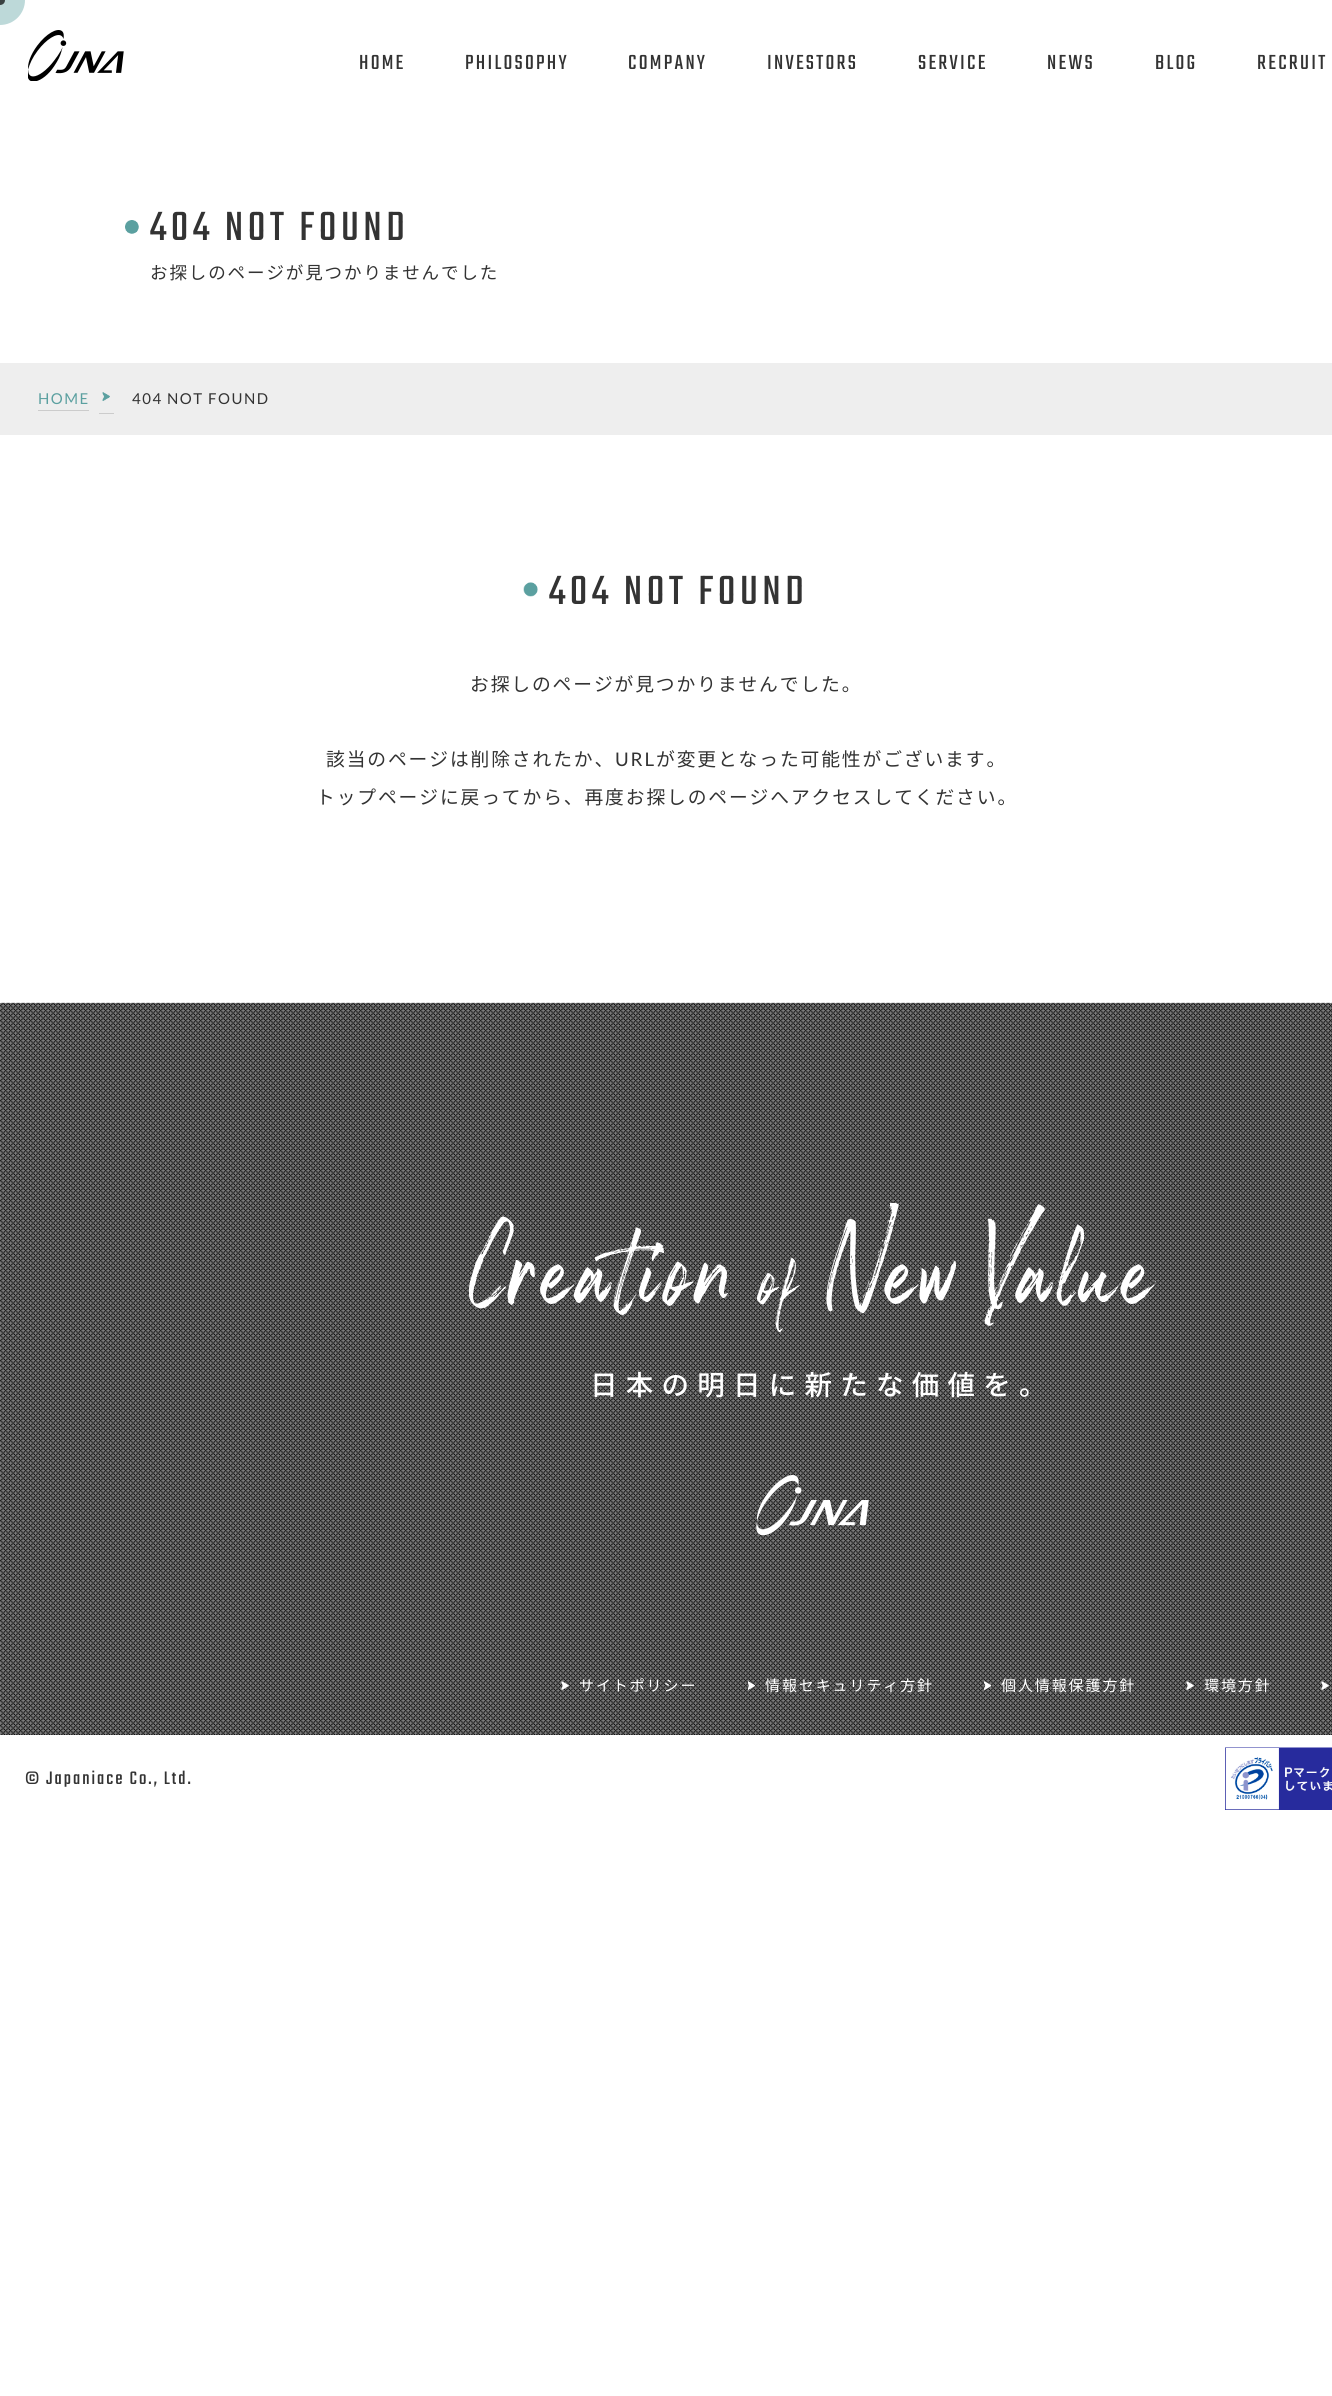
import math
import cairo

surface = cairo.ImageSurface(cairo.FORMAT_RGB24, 1332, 2396)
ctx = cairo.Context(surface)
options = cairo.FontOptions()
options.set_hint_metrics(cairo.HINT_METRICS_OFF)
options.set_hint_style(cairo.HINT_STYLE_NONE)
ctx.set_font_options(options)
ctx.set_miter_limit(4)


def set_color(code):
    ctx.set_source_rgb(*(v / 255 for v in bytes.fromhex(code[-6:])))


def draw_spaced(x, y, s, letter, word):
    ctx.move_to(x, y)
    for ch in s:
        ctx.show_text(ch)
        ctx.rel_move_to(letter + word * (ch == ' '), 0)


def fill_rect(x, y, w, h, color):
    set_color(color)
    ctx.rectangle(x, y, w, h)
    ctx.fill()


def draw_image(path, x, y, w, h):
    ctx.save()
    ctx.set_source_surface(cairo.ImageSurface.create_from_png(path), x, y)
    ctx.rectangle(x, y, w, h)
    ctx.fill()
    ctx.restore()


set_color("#ffffff")
ctx.paint()
set_color("#bdd9d9")
ctx.arc(0, 0, 25, 0, 2 * math.pi)
ctx.fill()
set_color("#394141")
ctx.arc(0, 0, 5, 0, 2 * math.pi)
ctx.fill()
draw_image("assets/img1.png", 28, 30, 96, 51)
ctx.select_font_face("Teko")
ctx.set_font_size(22.5)
set_color("#333333")
draw_spaced(359, 69, "HOME", 2.25, 0)
draw_spaced(465, 69, "PHILOSOPHY", 2.25, 0)
draw_spaced(628, 69, "COMPANY", 2.25, 0)
draw_spaced(767, 69, "INVESTORS", 2.25, 0)
draw_spaced(918, 69, "SERVICE", 2.25, 0)
draw_spaced(1047, 69, "NEWS", 2.25, 0)
draw_spaced(1155, 69, "BLOG", 2.25, 0)
draw_spaced(1257, 69, "RECRUIT", 2.25, 0)
draw_image("assets/img2.png", 125, 220, 14, 14)
ctx.set_font_size(45)
draw_spaced(150, 240, "404 NOT FOUND", 4.5, 0)
ctx.select_font_face("Noto Sans JP")
ctx.set_font_size(17.5)
draw_spaced(150, 279, "お探しのページが見つかりませんでした", 1.9, 0)
fill_rect(0, 363, 1332, 72, "#eeeeee")
fill_rect(38, 410, 51, 1, "#cccccc")
fill_rect(99, 413, 15, 1, "#cccccc")
ctx.select_font_face("Lato")
ctx.set_font_size(15)
set_color("#5ba0a0")
draw_spaced(38, 404, "HOME", 1.5, 0)
draw_image("assets/img3.png", 102, 392, 8, 9)
set_color("#333333")
draw_spaced(132, 404, "404 NOT FOUND", 1.5, 0)
draw_image("assets/img4.png", 523, 582, 15, 15)
ctx.select_font_face("Teko")
ctx.set_font_size(45)
draw_spaced(549, 604, "404 NOT FOUND", 4.5, 0)
ctx.select_font_face("Noto Sans JP")
ctx.set_font_size(18.75)
draw_spaced(470, 691, "お探しのページが見つかりませんでした。", 1.9, 0)
draw_spaced(326, 766, "該当のページは削除されたか、", 1.9, 0)
ctx.select_font_face("Lato")
draw_spaced(615, 766, "URL", 1.9, 0)
ctx.select_font_face("Noto Sans JP")
draw_spaced(656, 766, "が変更となった可能性がございます。", 1.9, 0)
draw_spaced(316, 804, "トップページに戻ってから、再度お探しのページへアクセスしてください。", 1.9, 0)
fill_rect(0, 1003, 1332, 732, "#808080")
draw_image("assets/img5.png", 0, 1002, 1332, 733)
draw_image("assets/img6.png", 469, 1203, 687, 130)
ctx.select_font_face("Noto Sans JP Medium")
ctx.set_font_size(27.5)
set_color("#ffffff")
draw_spaced(590, 1395, "日本の明日に新たな価値を。", 8.25, 0)
draw_image("assets/img7.png", 756, 1475, 113, 60)
draw_image("assets/img8.png", 561, 1681, 8, 9)
ctx.select_font_face("Noto Sans JP")
ctx.set_font_size(15)
draw_spaced(579, 1691, "サイトポリシー", 1.9, 0)
draw_image("assets/img9.png", 748, 1681, 7, 9)
draw_spaced(765, 1691, "情報セキュリティ方針", 1.9, 0)
draw_image("assets/img10.png", 984, 1681, 7, 9)
draw_spaced(1001, 1691, "個人情報保護方針", 1.9, 0)
draw_image("assets/img8.png", 1186, 1681, 8, 9)
draw_spaced(1204, 1691, "環境方針", 1.9, 0)
draw_image("assets/img11.png", 1321, 1681, 8, 9)
ctx.select_font_face("Teko")
ctx.set_font_size(20)
set_color("#333333")
draw_spaced(25, 1784, "© Japaniace Co., Ltd.", 2, 0)
draw_image("assets/img12.png", 1225, 1747, 107, 63)
surface.write_to_png("output.png")
